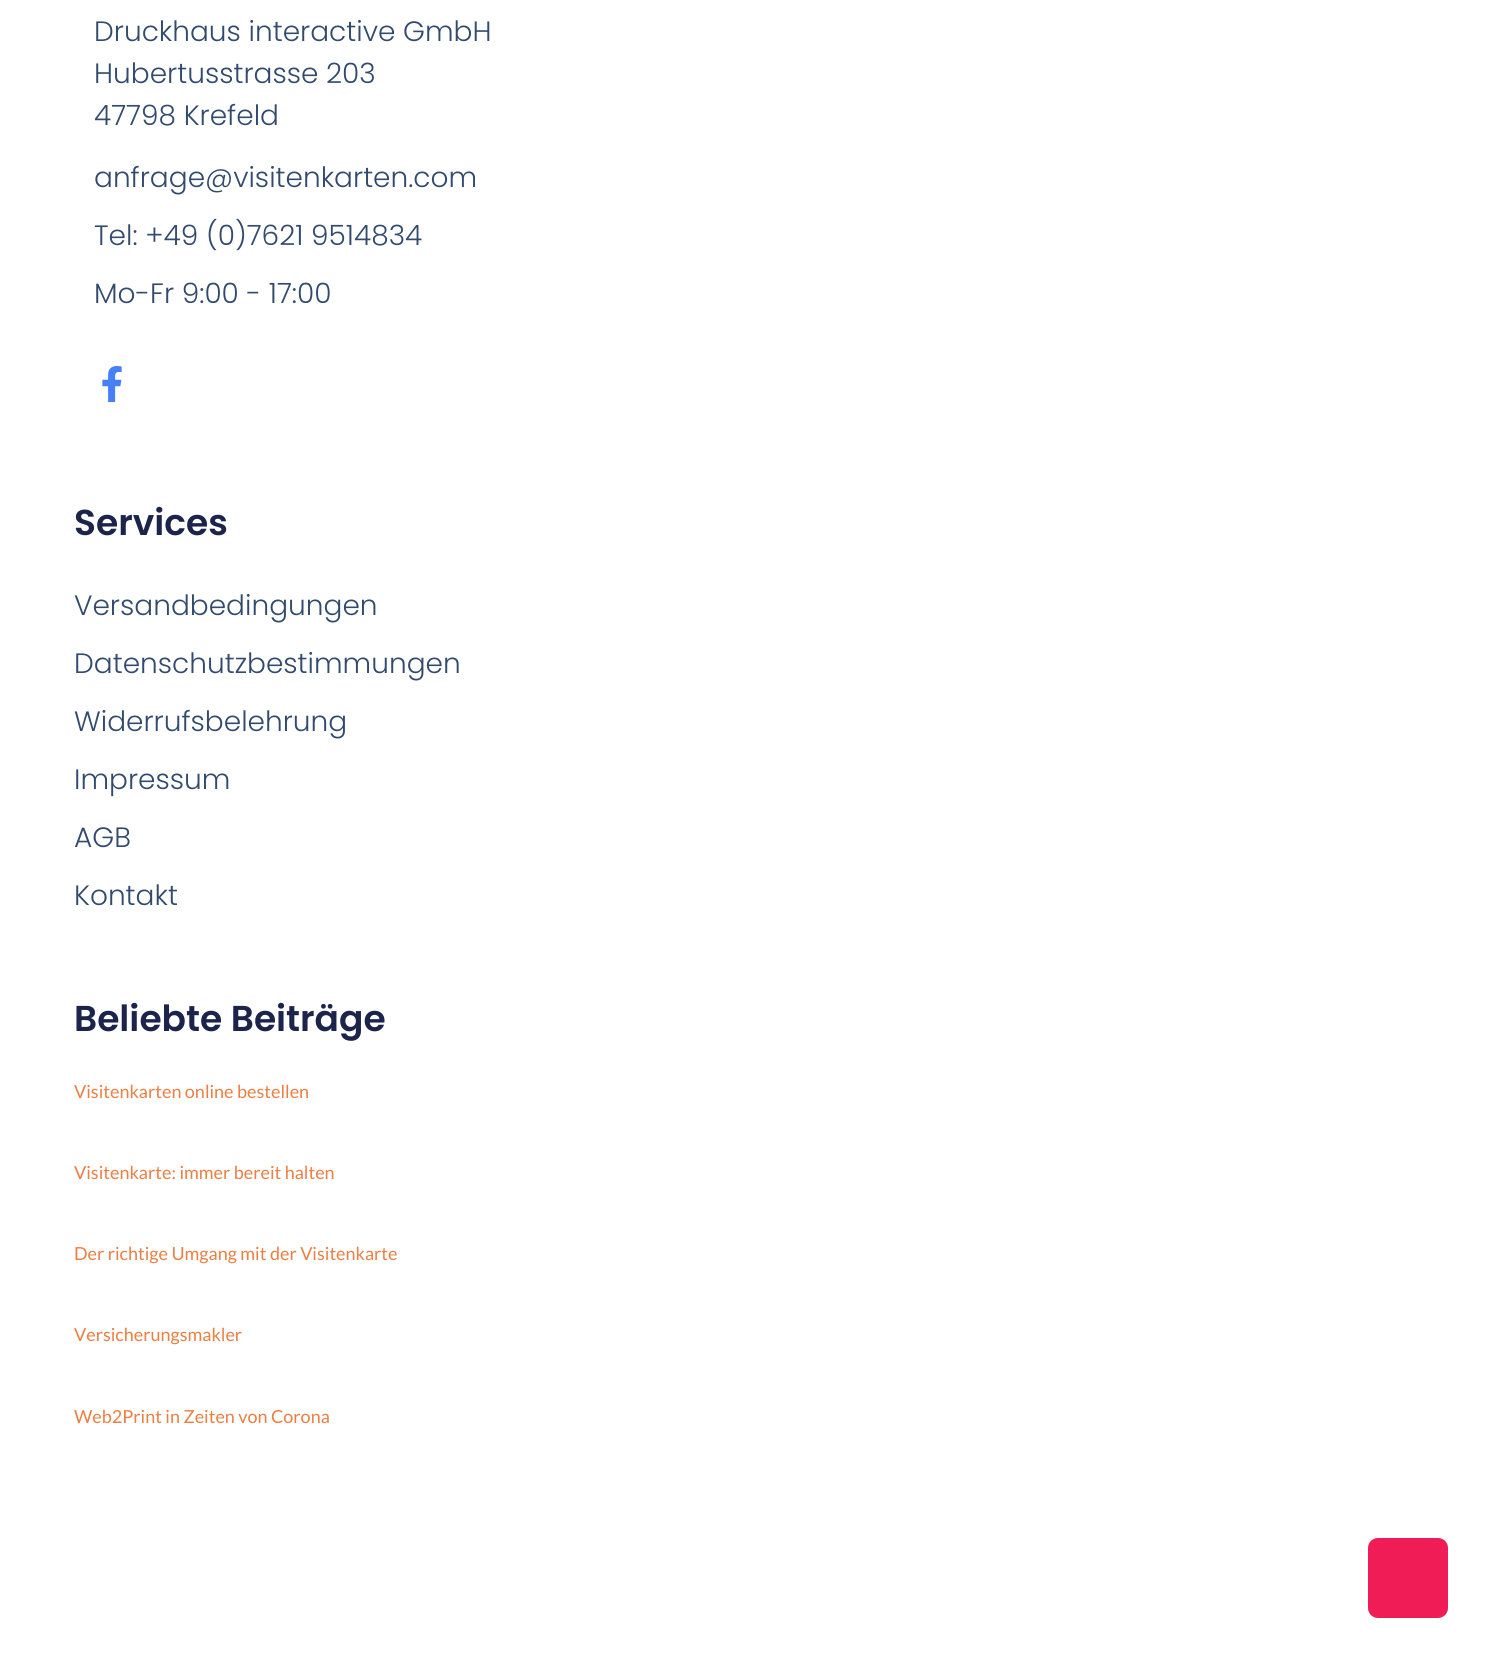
import math
import cairo

surface = cairo.ImageSurface(cairo.FORMAT_RGB24, 1488, 1678)
ctx = cairo.Context(surface)
options = cairo.FontOptions()
options.set_hint_metrics(cairo.HINT_METRICS_OFF)
options.set_hint_style(cairo.HINT_STYLE_NONE)
ctx.set_font_options(options)
ctx.set_miter_limit(4)


def set_color(code):
    ctx.set_source_rgb(*(v / 255 for v in bytes.fromhex(code[-6:])))


def draw_text(x, y, s, family, size, color, bold=False, italic=False):
    ctx.select_font_face(family, cairo.FONT_SLANT_ITALIC if italic else cairo.FONT_SLANT_NORMAL, cairo.FONT_WEIGHT_BOLD if bold else cairo.FONT_WEIGHT_NORMAL)
    ctx.set_font_size(size)
    set_color(color)
    ctx.move_to(x, y)
    ctx.show_text(s)


def rounded_rect(x, y, w, h, r):
    ctx.new_sub_path()
    for i, (u, v) in enumerate([(x + w - r, y + h - r), (x + r, y + h - r), (x + r, y + r), (x + w - r, y + r)]):
        ctx.arc(u, v, r, i * math.pi / 2, (i + 1) * math.pi / 2)
    ctx.close_path()


def draw_image(path, x, y, w, h):
    ctx.save()
    ctx.set_source_surface(cairo.ImageSurface.create_from_png(path), x, y)
    ctx.rectangle(x, y, w, h)
    ctx.fill()
    ctx.restore()


set_color("#ffffff")
ctx.paint()
draw_text(94, 41, "Druckhaus interactive GmbH", "Poppins Light", 28, "#324a6d")
draw_text(94, 83, "Hubertusstrasse 203", "Poppins Light", 28, "#324a6d")
draw_text(94, 125, "47798 Krefeld", "Poppins Light", 28, "#324a6d")
draw_text(94, 187, "anfrage@visitenkarten.com", "Poppins Light", 28, "#324a6d")
draw_text(94, 245, "Tel: +49 (0)7621 9514834", "Poppins Light", 28, "#324a6d")
draw_text(94, 303, "Mo-Fr 9:00 - 17:00", "Poppins Light", 28, "#324a6d")
draw_image("assets/img1.png", 102, 366, 20, 36)
draw_text(74, 535, "Services", "Poppins SemiBold", 36, "#1c244b")
draw_text(74, 615, "Versandbedingungen", "Poppins Light", 28, "#324a6d")
draw_text(74, 673, "Datenschutzbestimmungen", "Poppins Light", 28, "#324a6d")
draw_text(74, 731, "Widerrufsbelehrung", "Poppins Light", 28, "#324a6d")
draw_text(74, 789, "Impressum", "Poppins Light", 28, "#324a6d")
draw_text(74, 847, "AGB", "Poppins Light", 28, "#324a6d")
draw_text(74, 905, "Kontakt", "Poppins Light", 28, "#324a6d")
draw_text(74, 1031, "Beliebte Beiträge", "Poppins SemiBold", 36, "#1c244b")
draw_text(74, 1098, "Visitenkarten online bestellen", "Lato", 18, "#ec7e42")
draw_text(74, 1179, "Visitenkarte: immer bereit halten", "Lato", 18, "#ec7e42")
draw_text(74, 1260, "Der richtige Umgang mit der Visitenkarte", "Lato", 18, "#ec7e42")
draw_text(74, 1341, "Versicherungsmakler", "Lato", 18, "#ec7e42")
draw_text(74, 1423, "Web2Print in Zeiten von Corona", "Lato", 18, "#ec7e42")
set_color("#ef1c55")
rounded_rect(1368, 1538, 80, 80, 10)
ctx.fill()
surface.write_to_png("output.png")
